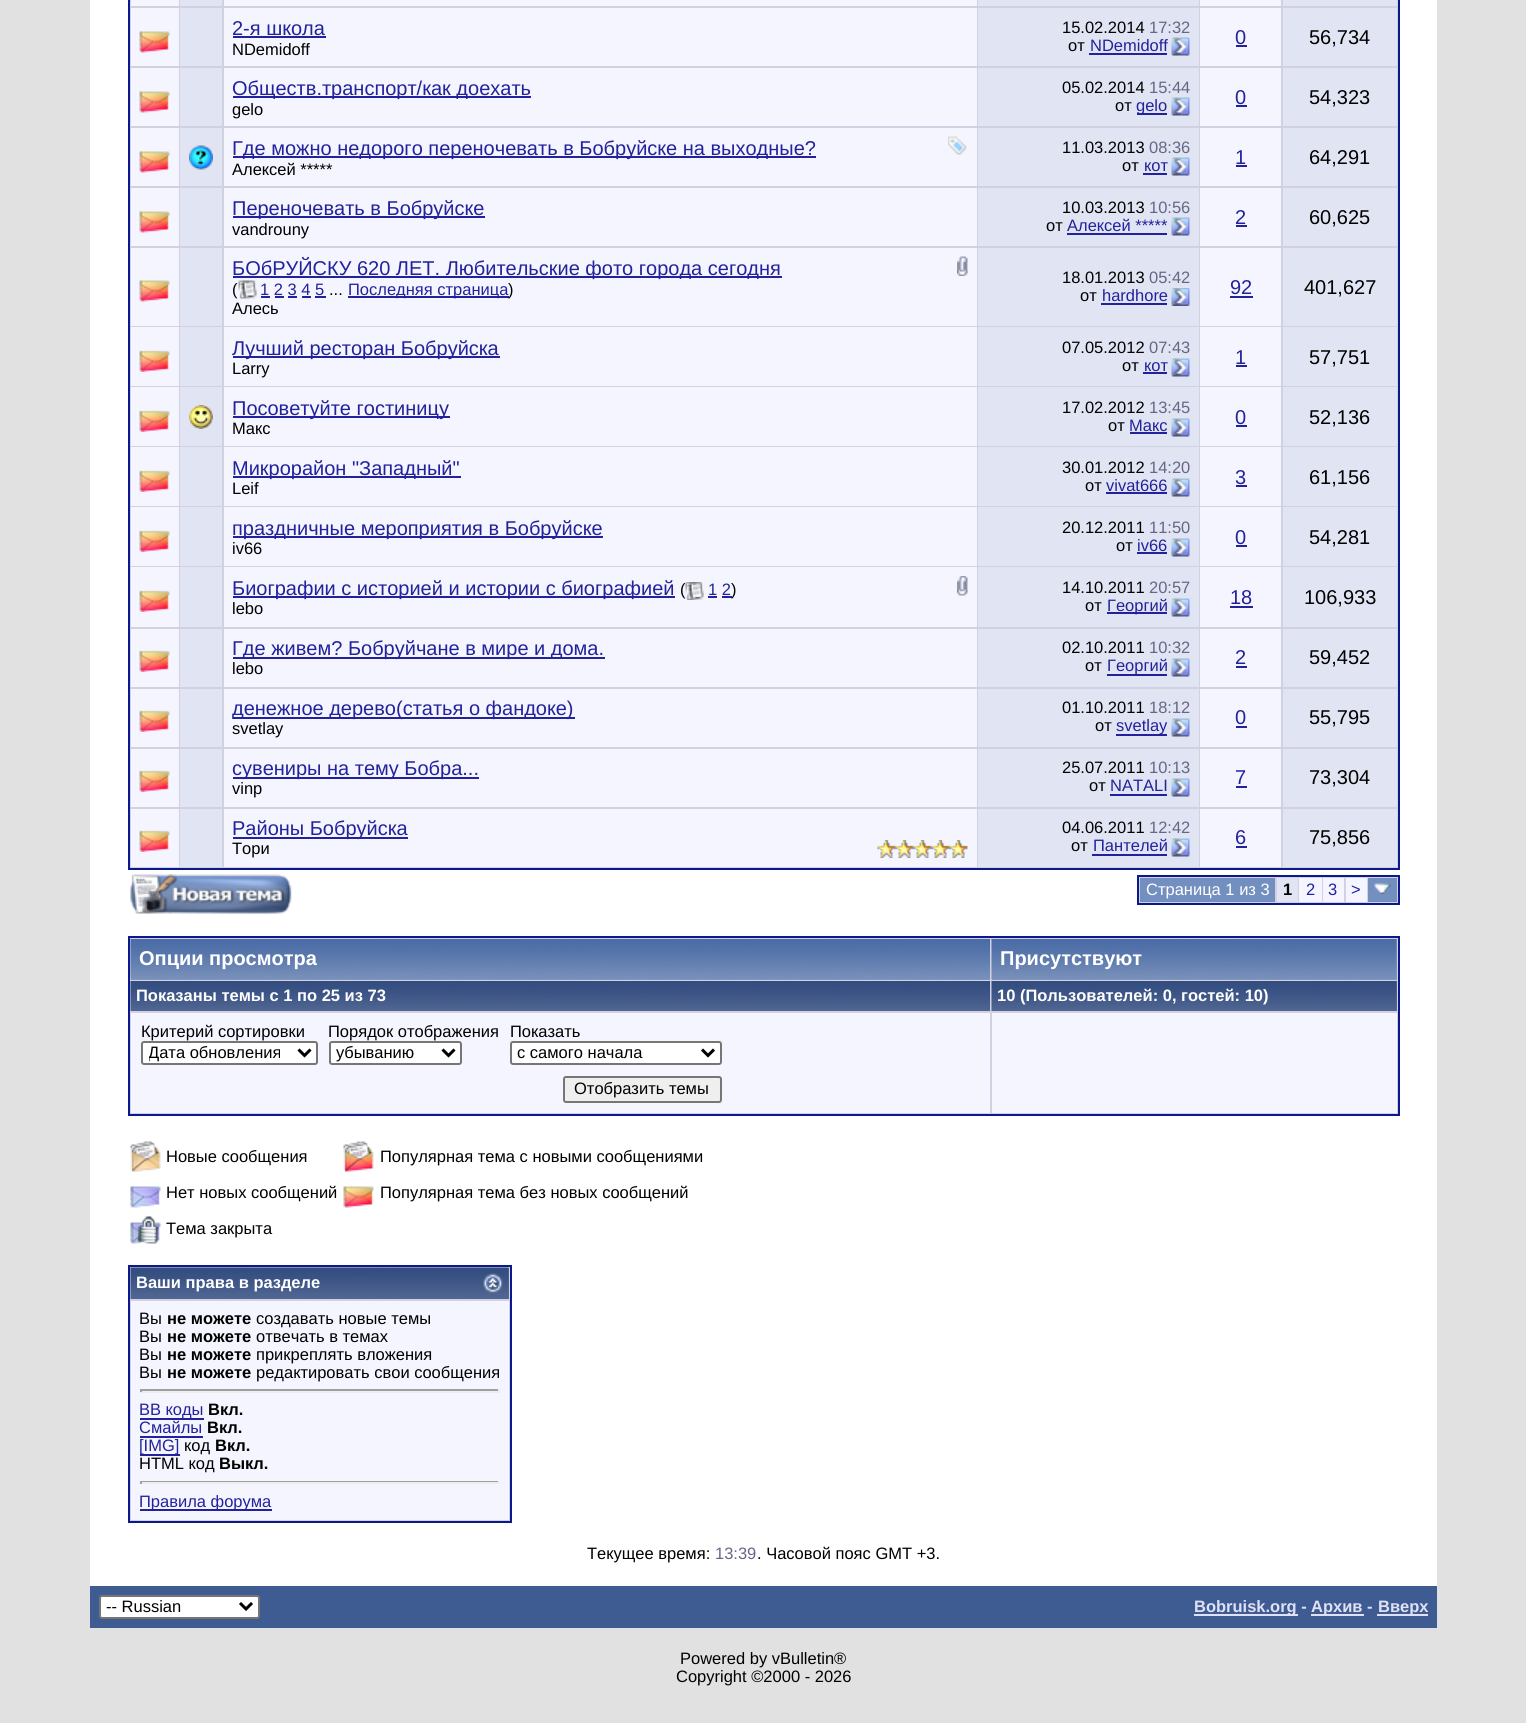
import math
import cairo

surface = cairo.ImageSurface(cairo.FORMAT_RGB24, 1526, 1723)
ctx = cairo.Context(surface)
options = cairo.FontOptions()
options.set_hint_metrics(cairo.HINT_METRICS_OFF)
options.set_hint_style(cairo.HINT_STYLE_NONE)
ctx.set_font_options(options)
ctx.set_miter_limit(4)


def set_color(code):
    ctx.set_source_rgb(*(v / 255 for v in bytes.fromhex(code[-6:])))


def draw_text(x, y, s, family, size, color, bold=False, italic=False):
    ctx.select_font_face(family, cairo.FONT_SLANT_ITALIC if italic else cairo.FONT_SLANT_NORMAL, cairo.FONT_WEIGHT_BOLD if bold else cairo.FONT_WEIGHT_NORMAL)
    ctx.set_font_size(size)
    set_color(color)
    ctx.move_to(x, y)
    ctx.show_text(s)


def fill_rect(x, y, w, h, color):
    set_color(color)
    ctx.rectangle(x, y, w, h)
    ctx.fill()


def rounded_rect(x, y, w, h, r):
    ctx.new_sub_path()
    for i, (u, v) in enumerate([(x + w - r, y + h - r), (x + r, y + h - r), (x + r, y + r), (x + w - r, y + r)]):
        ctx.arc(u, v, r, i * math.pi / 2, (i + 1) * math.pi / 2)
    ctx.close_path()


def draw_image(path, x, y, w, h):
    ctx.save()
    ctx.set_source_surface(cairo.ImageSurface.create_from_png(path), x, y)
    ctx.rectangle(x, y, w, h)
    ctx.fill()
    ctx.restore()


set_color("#e1e1e2")
ctx.paint()
fill_rect(90, 0, 1347, 1586, "#ffffff")
set_color("#d1d1e1")
ctx.rectangle(129, -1, 1270, 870)
ctx.fill_preserve()
set_color("#0b198c")
ctx.stroke()
fill_rect(131, 0, 48, 6, "#f5f5ff")
fill_rect(180, 0, 42, 6, "#e1e4f2")
fill_rect(224, 0, 753, 6, "#f5f5ff")
fill_rect(978, 0, 221, 6, "#e1e4f2")
fill_rect(1200, 0, 81, 6, "#f5f5ff")
fill_rect(1283, 0, 114, 6, "#e1e4f2")
fill_rect(131, 8, 48, 58, "#f5f5ff")
draw_image("assets/img1.png", 139, 31, 31, 22)
fill_rect(180, 8, 42, 58, "#e1e4f2")
fill_rect(224, 8, 753, 58, "#f5f5ff")
draw_text(232, 35, "2-я школа", "Liberation Sans", 20, "#22229c")
fill_rect(233, 36, 93, 2, "#22229c")
draw_text(232, 55, "NDemidoff", "Liberation Sans", 16.5, "#000000")
fill_rect(978, 8, 221, 58, "#e1e4f2")
draw_text(1062, 33, "15.02.2014", "Liberation Sans", 16.5, "#000000")
draw_text(1149, 33, "17:32", "Liberation Sans", 16.5, "#666686")
draw_text(1068, 51, "от", "Liberation Sans", 16.5, "#000000")
draw_text(1090, 51, "NDemidoff", "Liberation Sans", 16.5, "#22229c")
fill_rect(1089, 53, 78, 2, "#22229c")
draw_image("assets/img2.png", 1171, 37, 19, 19)
fill_rect(1200, 8, 81, 58, "#f5f5ff")
draw_text(1235, 44, "0", "Liberation Sans", 20, "#22229c")
fill_rect(1236, 45, 11, 2, "#22229c")
fill_rect(1283, 8, 114, 58, "#e1e4f2")
draw_text(1309, 44, "56,734", "Liberation Sans", 20, "#000000")
fill_rect(131, 68, 48, 58, "#f5f5ff")
draw_image("assets/img1.png", 139, 91, 31, 22)
fill_rect(180, 68, 42, 58, "#e1e4f2")
fill_rect(224, 68, 753, 58, "#f5f5ff")
fill_rect(233, 96, 298, 2, "#22229c")
draw_text(232, 95, "Обществ.транспорт/как доехать", "Liberation Sans", 20, "#22229c")
draw_text(232, 115, "gelo", "Liberation Sans", 16.5, "#000000")
fill_rect(978, 68, 221, 58, "#e1e4f2")
draw_text(1062, 93, "05.02.2014", "Liberation Sans", 16.5, "#000000")
draw_text(1149, 93, "15:44", "Liberation Sans", 16.5, "#666686")
draw_text(1115, 111, "от", "Liberation Sans", 16.5, "#000000")
fill_rect(1137, 113, 30, 2, "#22229c")
draw_text(1136, 111, "gelo", "Liberation Sans", 16.5, "#22229c")
draw_image("assets/img2.png", 1171, 97, 19, 19)
fill_rect(1200, 68, 81, 58, "#f5f5ff")
draw_text(1235, 104, "0", "Liberation Sans", 20, "#22229c")
fill_rect(1236, 105, 11, 2, "#22229c")
fill_rect(1283, 68, 114, 58, "#e1e4f2")
draw_text(1309, 104, "54,323", "Liberation Sans", 20, "#000000")
fill_rect(131, 128, 48, 58, "#f5f5ff")
draw_image("assets/img1.png", 139, 151, 31, 22)
fill_rect(180, 128, 42, 58, "#e1e4f2")
draw_image("assets/img3.png", 189, 145, 24, 25)
fill_rect(224, 128, 753, 58, "#f5f5ff")
fill_rect(233, 156, 583, 2, "#22229c")
draw_text(232, 155, "Где можно недорого переночевать в Бобруйске на выходные?", "Liberation Sans", 20, "#22229c")
draw_image("assets/img4.png", 948, 136, 19, 19)
draw_text(232, 175, "Алексей *****", "Liberation Sans", 16.5, "#000000")
fill_rect(978, 128, 221, 58, "#e1e4f2")
draw_text(1062, 153, "11.03.2013", "Liberation Sans", 16.5, "#000000")
draw_text(1149, 153, "08:36", "Liberation Sans", 16.5, "#666686")
draw_text(1122, 171, "от", "Liberation Sans", 16.5, "#000000")
draw_text(1144, 171, "кот", "Liberation Sans", 16.5, "#22229c")
fill_rect(1143, 173, 24, 2, "#22229c")
draw_image("assets/img2.png", 1171, 157, 19, 19)
fill_rect(1200, 128, 81, 58, "#f5f5ff")
draw_text(1235, 164, "1", "Liberation Sans", 20, "#22229c")
fill_rect(1236, 165, 11, 2, "#22229c")
fill_rect(1283, 128, 114, 58, "#e1e4f2")
draw_text(1309, 164, "64,291", "Liberation Sans", 20, "#000000")
fill_rect(131, 188, 48, 58, "#f5f5ff")
draw_image("assets/img1.png", 139, 211, 31, 22)
fill_rect(180, 188, 42, 58, "#e1e4f2")
fill_rect(224, 188, 753, 58, "#f5f5ff")
fill_rect(233, 216, 252, 2, "#22229c")
draw_text(232, 215, "Переночевать в Бобруйске", "Liberation Sans", 20, "#22229c")
draw_text(232, 235, "vandrouny", "Liberation Sans", 16.5, "#000000")
fill_rect(978, 188, 221, 58, "#e1e4f2")
draw_text(1062, 213, "10.03.2013", "Liberation Sans", 16.5, "#000000")
draw_text(1149, 213, "10:56", "Liberation Sans", 16.5, "#666686")
draw_text(1046, 231, "от", "Liberation Sans", 16.5, "#000000")
draw_text(1067, 231, "Алексей *****", "Liberation Sans", 16.5, "#22229c")
fill_rect(1067, 233, 100, 2, "#22229c")
draw_image("assets/img2.png", 1171, 217, 19, 19)
fill_rect(1200, 188, 81, 58, "#f5f5ff")
draw_text(1235, 224, "2", "Liberation Sans", 20, "#22229c")
fill_rect(1236, 225, 11, 2, "#22229c")
fill_rect(1283, 188, 114, 58, "#e1e4f2")
draw_text(1309, 224, "60,625", "Liberation Sans", 20, "#000000")
fill_rect(131, 248, 48, 78, "#f5f5ff")
draw_image("assets/img1.png", 139, 280, 31, 22)
fill_rect(180, 248, 42, 78, "#e1e4f2")
fill_rect(224, 248, 753, 78, "#f5f5ff")
fill_rect(233, 276, 549, 2, "#22229c")
draw_text(232, 275, "БОбРУЙСКУ 620 ЛЕТ. Любительские фото города сегодня", "Liberation Sans", 20, "#22229c")
draw_image("assets/img5.png", 957, 256, 11, 20)
draw_text(232, 295, "(", "Liberation Sans", 16.5, "#000000")
draw_image("assets/img6.png", 238, 280, 19, 19)
draw_text(260, 295, "1 2 3 4 5", "Liberation Sans", 16.5, "#22229c")
fill_rect(261, 296, 9, 2, "#22229c")
fill_rect(275, 296, 9, 2, "#22229c")
fill_rect(288, 296, 9, 2, "#22229c")
fill_rect(302, 296, 9, 2, "#22229c")
draw_text(329, 295, "...", "Liberation Sans", 16.5, "#000000")
fill_rect(315, 296, 11, 2, "#22229c")
fill_rect(348, 296, 161, 2, "#22229c")
draw_text(348, 295, "Последняя страница", "Liberation Sans", 16.5, "#22229c")
draw_text(508, 295, ")", "Liberation Sans", 16.5, "#000000")
draw_text(232, 314, "Алесь", "Liberation Sans", 16.5, "#000000")
fill_rect(978, 248, 221, 78, "#e1e4f2")
draw_text(1062, 283, "18.01.2013", "Liberation Sans", 16.5, "#000000")
draw_text(1149, 283, "05:42", "Liberation Sans", 16.5, "#666686")
draw_text(1080, 301, "от", "Liberation Sans", 16.5, "#000000")
draw_text(1102, 301, "hardhore", "Liberation Sans", 16.5, "#22229c")
fill_rect(1101, 303, 66, 2, "#22229c")
draw_image("assets/img7.png", 1171, 288, 19, 18)
fill_rect(1200, 248, 81, 78, "#f5f5ff")
draw_text(1230, 294, "92", "Liberation Sans", 20, "#22229c")
fill_rect(1230, 296, 23, 2, "#22229c")
fill_rect(1283, 248, 114, 78, "#e1e4f2")
draw_text(1304, 294, "401,627", "Liberation Sans", 20, "#000000")
fill_rect(131, 327, 48, 59, "#f5f5ff")
draw_image("assets/img8.png", 139, 350, 31, 22)
fill_rect(180, 327, 42, 59, "#e1e4f2")
fill_rect(224, 327, 753, 59, "#f5f5ff")
fill_rect(233, 356, 267, 2, "#22229c")
draw_text(232, 355, "Лучший ресторан Бобруйска", "Liberation Sans", 20, "#22229c")
draw_text(232, 374, "Larry", "Liberation Sans", 16.5, "#000000")
fill_rect(978, 327, 221, 59, "#e1e4f2")
draw_text(1062, 353, "07.05.2012", "Liberation Sans", 16.5, "#000000")
draw_text(1149, 353, "07:43", "Liberation Sans", 16.5, "#666686")
draw_text(1122, 371, "от", "Liberation Sans", 16.5, "#000000")
draw_text(1144, 371, "кот", "Liberation Sans", 16.5, "#22229c")
fill_rect(1143, 372, 24, 2, "#22229c")
draw_image("assets/img2.png", 1171, 358, 19, 19)
fill_rect(1200, 327, 81, 59, "#f5f5ff")
draw_text(1235, 364, "1", "Liberation Sans", 20, "#22229c")
fill_rect(1236, 365, 11, 2, "#22229c")
fill_rect(1283, 327, 114, 59, "#e1e4f2")
draw_text(1309, 364, "57,751", "Liberation Sans", 20, "#000000")
fill_rect(131, 387, 48, 59, "#f5f5ff")
draw_image("assets/img8.png", 139, 410, 31, 22)
fill_rect(180, 387, 42, 59, "#e1e4f2")
draw_image("assets/img9.png", 189, 405, 24, 24)
fill_rect(224, 387, 753, 59, "#f5f5ff")
fill_rect(233, 416, 217, 2, "#22229c")
draw_text(232, 415, "Посоветуйте гостиницу", "Liberation Sans", 20, "#22229c")
draw_text(232, 434, "Макс", "Liberation Sans", 16.5, "#000000")
fill_rect(978, 387, 221, 59, "#e1e4f2")
draw_text(1062, 413, "17.02.2012", "Liberation Sans", 16.5, "#000000")
draw_text(1149, 413, "13:45", "Liberation Sans", 16.5, "#666686")
draw_text(1108, 431, "от", "Liberation Sans", 16.5, "#000000")
draw_text(1129, 431, "Макс", "Liberation Sans", 16.5, "#22229c")
fill_rect(1130, 432, 37, 2, "#22229c")
draw_image("assets/img2.png", 1171, 418, 19, 19)
fill_rect(1200, 387, 81, 59, "#f5f5ff")
draw_text(1235, 424, "0", "Liberation Sans", 20, "#22229c")
fill_rect(1236, 425, 11, 2, "#22229c")
fill_rect(1283, 387, 114, 59, "#e1e4f2")
draw_text(1309, 424, "52,136", "Liberation Sans", 20, "#000000")
fill_rect(131, 447, 48, 59, "#f5f5ff")
draw_image("assets/img8.png", 139, 470, 31, 22)
fill_rect(180, 447, 42, 59, "#e1e4f2")
fill_rect(224, 447, 753, 59, "#f5f5ff")
fill_rect(233, 476, 228, 2, "#22229c")
draw_text(232, 475, "Микрорайон \"Западный\"", "Liberation Sans", 20, "#22229c")
draw_text(232, 494, "Leif", "Liberation Sans", 16.5, "#000000")
fill_rect(978, 447, 221, 59, "#e1e4f2")
draw_text(1062, 473, "30.01.2012", "Liberation Sans", 16.5, "#000000")
draw_text(1149, 473, "14:20", "Liberation Sans", 16.5, "#666686")
draw_text(1085, 491, "от", "Liberation Sans", 16.5, "#000000")
draw_text(1106, 491, "vivat666", "Liberation Sans", 16.5, "#22229c")
fill_rect(1106, 492, 61, 2, "#22229c")
draw_image("assets/img2.png", 1171, 478, 19, 19)
fill_rect(1200, 447, 81, 59, "#f5f5ff")
draw_text(1235, 484, "3", "Liberation Sans", 20, "#22229c")
fill_rect(1236, 485, 11, 2, "#22229c")
fill_rect(1283, 447, 114, 59, "#e1e4f2")
draw_text(1309, 484, "61,156", "Liberation Sans", 20, "#000000")
fill_rect(131, 507, 48, 59, "#f5f5ff")
draw_image("assets/img8.png", 139, 530, 31, 22)
fill_rect(180, 507, 42, 59, "#e1e4f2")
fill_rect(224, 507, 753, 59, "#f5f5ff")
fill_rect(233, 536, 370, 2, "#22229c")
draw_text(232, 535, "праздничные мероприятия в Бобруйске", "Liberation Sans", 20, "#22229c")
draw_text(232, 554, "iv66", "Liberation Sans", 16.5, "#000000")
fill_rect(978, 507, 221, 59, "#e1e4f2")
draw_text(1062, 533, "20.12.2011", "Liberation Sans", 16.5, "#000000")
draw_text(1149, 533, "11:50", "Liberation Sans", 16.5, "#666686")
draw_text(1116, 551, "от", "Liberation Sans", 16.5, "#000000")
draw_text(1137, 551, "iv66", "Liberation Sans", 16.5, "#22229c")
fill_rect(1137, 552, 30, 2, "#22229c")
draw_image("assets/img2.png", 1171, 538, 19, 19)
fill_rect(1200, 507, 81, 59, "#f5f5ff")
draw_text(1235, 544, "0", "Liberation Sans", 20, "#22229c")
fill_rect(1236, 545, 11, 2, "#22229c")
fill_rect(1283, 507, 114, 59, "#e1e4f2")
draw_text(1309, 544, "54,281", "Liberation Sans", 20, "#000000")
fill_rect(131, 567, 48, 60, "#f5f5ff")
draw_image("assets/img8.png", 139, 590, 31, 22)
fill_rect(180, 567, 42, 60, "#e1e4f2")
fill_rect(224, 567, 753, 60, "#f5f5ff")
fill_rect(233, 596, 442, 2, "#22229c")
draw_text(232, 595, "Биографии с историей и истории с биографией", "Liberation Sans", 20, "#22229c")
draw_text(680, 595, "(", "Liberation Sans", 16.5, "#000000")
draw_image("assets/img10.png", 685, 582, 19, 18)
draw_text(708, 595, "1 2", "Liberation Sans", 16.5, "#22229c")
fill_rect(708, 596, 9, 2, "#22229c")
fill_rect(722, 596, 10, 2, "#22229c")
draw_text(731, 595, ")", "Liberation Sans", 16.5, "#000000")
draw_image("assets/img11.png", 957, 576, 11, 20)
draw_text(232, 614, "lebo", "Liberation Sans", 16.5, "#000000")
fill_rect(978, 567, 221, 60, "#e1e4f2")
draw_text(1062, 593, "14.10.2011", "Liberation Sans", 16.5, "#000000")
draw_text(1149, 593, "20:57", "Liberation Sans", 16.5, "#666686")
draw_text(1085, 611, "от", "Liberation Sans", 16.5, "#000000")
fill_rect(1107, 612, 60, 2, "#22229c")
draw_text(1107, 611, "Георгий", "Liberation Sans", 16.5, "#22229c")
draw_image("assets/img2.png", 1171, 598, 19, 19)
fill_rect(1200, 567, 81, 60, "#f5f5ff")
draw_text(1230, 604, "18", "Liberation Sans", 20, "#22229c")
fill_rect(1230, 606, 23, 2, "#22229c")
fill_rect(1283, 567, 114, 60, "#e1e4f2")
draw_text(1304, 604, "106,933", "Liberation Sans", 20, "#000000")
fill_rect(131, 629, 48, 58, "#f5f5ff")
draw_image("assets/img8.png", 139, 650, 31, 22)
fill_rect(180, 629, 42, 58, "#e1e4f2")
fill_rect(224, 629, 753, 58, "#f5f5ff")
fill_rect(233, 657, 372, 2, "#22229c")
draw_text(232, 655, "Где живем? Бобруйчане в мире и дома.", "Liberation Sans", 20, "#22229c")
draw_text(232, 674, "lebo", "Liberation Sans", 16.5, "#000000")
fill_rect(978, 629, 221, 58, "#e1e4f2")
draw_text(1062, 653, "02.10.2011", "Liberation Sans", 16.5, "#000000")
draw_text(1149, 653, "10:32", "Liberation Sans", 16.5, "#666686")
draw_text(1085, 671, "от", "Liberation Sans", 16.5, "#000000")
fill_rect(1107, 674, 60, 2, "#22229c")
draw_text(1107, 671, "Георгий", "Liberation Sans", 16.5, "#22229c")
draw_image("assets/img2.png", 1171, 658, 19, 19)
fill_rect(1200, 629, 81, 58, "#f5f5ff")
draw_text(1235, 664, "2", "Liberation Sans", 20, "#22229c")
fill_rect(1236, 666, 11, 2, "#22229c")
fill_rect(1283, 629, 114, 58, "#e1e4f2")
draw_text(1309, 664, "59,452", "Liberation Sans", 20, "#000000")
fill_rect(131, 689, 48, 58, "#f5f5ff")
draw_image("assets/img8.png", 139, 710, 31, 22)
fill_rect(180, 689, 42, 58, "#e1e4f2")
fill_rect(224, 689, 753, 58, "#f5f5ff")
fill_rect(233, 717, 342, 2, "#22229c")
draw_text(232, 715, "денежное дерево(статья о фандоке)", "Liberation Sans", 20, "#22229c")
draw_text(232, 734, "svetlay", "Liberation Sans", 16.5, "#000000")
fill_rect(978, 689, 221, 58, "#e1e4f2")
draw_text(1062, 713, "01.10.2011", "Liberation Sans", 16.5, "#000000")
draw_text(1149, 713, "18:12", "Liberation Sans", 16.5, "#666686")
draw_text(1095, 731, "от", "Liberation Sans", 16.5, "#000000")
fill_rect(1116, 734, 51, 2, "#22229c")
draw_text(1116, 731, "svetlay", "Liberation Sans", 16.5, "#22229c")
draw_image("assets/img2.png", 1171, 718, 19, 19)
fill_rect(1200, 689, 81, 58, "#f5f5ff")
draw_text(1235, 724, "0", "Liberation Sans", 20, "#22229c")
fill_rect(1236, 726, 11, 2, "#22229c")
fill_rect(1283, 689, 114, 58, "#e1e4f2")
draw_text(1309, 724, "55,795", "Liberation Sans", 20, "#000000")
fill_rect(131, 749, 48, 58, "#f5f5ff")
draw_image("assets/img8.png", 139, 770, 31, 22)
fill_rect(180, 749, 42, 58, "#e1e4f2")
fill_rect(224, 749, 753, 58, "#f5f5ff")
fill_rect(233, 777, 246, 2, "#22229c")
draw_text(232, 775, "сувениры на тему Бобра...", "Liberation Sans", 20, "#22229c")
draw_text(232, 794, "vinp", "Liberation Sans", 16.5, "#000000")
fill_rect(978, 749, 221, 58, "#e1e4f2")
draw_text(1062, 773, "25.07.2011", "Liberation Sans", 16.5, "#000000")
draw_text(1149, 773, "10:13", "Liberation Sans", 16.5, "#666686")
draw_text(1089, 791, "от", "Liberation Sans", 16.5, "#000000")
draw_text(1110, 791, "NATALI", "Liberation Sans", 16.5, "#22229c")
fill_rect(1110, 794, 57, 2, "#22229c")
draw_image("assets/img2.png", 1171, 778, 19, 19)
fill_rect(1200, 749, 81, 58, "#f5f5ff")
draw_text(1235, 784, "7", "Liberation Sans", 20, "#22229c")
fill_rect(1236, 786, 11, 2, "#22229c")
fill_rect(1283, 749, 114, 58, "#e1e4f2")
draw_text(1309, 784, "73,304", "Liberation Sans", 20, "#000000")
fill_rect(131, 809, 48, 58, "#f5f5ff")
draw_image("assets/img8.png", 139, 830, 31, 22)
fill_rect(180, 809, 42, 58, "#e1e4f2")
fill_rect(224, 809, 753, 58, "#f5f5ff")
fill_rect(233, 837, 175, 2, "#22229c")
draw_text(232, 835, "Районы Бобруйска", "Liberation Sans", 20, "#22229c")
draw_text(232, 854, "Тори", "Liberation Sans", 16.5, "#000000")
draw_image("assets/img12.png", 877, 840, 91, 18)
fill_rect(978, 809, 221, 58, "#e1e4f2")
draw_text(1062, 833, "04.06.2011", "Liberation Sans", 16.5, "#000000")
draw_text(1149, 833, "12:42", "Liberation Sans", 16.5, "#666686")
draw_text(1071, 851, "от", "Liberation Sans", 16.5, "#000000")
draw_text(1093, 851, "Пантелей", "Liberation Sans", 16.5, "#22229c")
fill_rect(1092, 854, 75, 2, "#22229c")
draw_image("assets/img2.png", 1171, 838, 19, 19)
fill_rect(1200, 809, 81, 58, "#f5f5ff")
draw_text(1235, 844, "6", "Liberation Sans", 20, "#22229c")
fill_rect(1236, 846, 11, 2, "#22229c")
fill_rect(1283, 809, 114, 58, "#e1e4f2")
draw_text(1309, 844, "75,856", "Liberation Sans", 20, "#000000")
draw_image("assets/img13.png", 130, 874, 162, 40)
set_color("#d1d1e1")
ctx.rectangle(1138, 876, 261, 28)
ctx.fill_preserve()
set_color("#0b198c")
ctx.stroke()
fill_rect(1140, 878, 135, 24, "#738fbf")
draw_text(1146, 895, "Страница 1 из 3", "Liberation Sans", 16.5, "#ffffff")
fill_rect(1277, 878, 21, 24, "#e1e4f2")
draw_text(1283, 895, "1", "Liberation Sans", 16.5, "#000000", bold=True)
fill_rect(1299, 878, 23, 24, "#f5f5ff")
draw_text(1306, 895, "2", "Liberation Sans", 16.5, "#22229c")
fill_rect(1323, 878, 21, 24, "#f5f5ff")
draw_text(1328, 895, "3", "Liberation Sans", 16.5, "#22229c")
fill_rect(1346, 878, 21, 24, "#f5f5ff")
draw_text(1351, 895, ">", "Liberation Sans", 16.5, "#22229c")
fill_rect(1368, 878, 29, 24, "#738fbf")
draw_image("assets/img14.png", 1374, 883, 17, 11)
set_color("#d1d1e1")
ctx.rectangle(129, 937, 1270, 178)
ctx.fill_preserve()
set_color("#0b198c")
ctx.stroke()
fill_rect(131, 979, 859, 1, "#869bbf")
draw_image("assets/img15.png", 130, 939, 860, 41)
draw_text(139, 965, "Опции просмотра", "Liberation Sans", 20, "#ffffff", bold=True)
fill_rect(992, 939, 405, 41, "#869bbf")
draw_image("assets/img16.png", 991, 939, 406, 41)
draw_text(1000, 965, "Присутствуют", "Liberation Sans", 20, "#ffffff", bold=True)
draw_image("assets/img17.png", 130, 981, 860, 30)
draw_text(136, 1001, "Показаны темы с 1 по 25 из 73", "Liberation Sans", 16.5, "#ffffff", bold=True)
fill_rect(1396, 981, 1, 30, "#5c7099")
draw_image("assets/img18.png", 991, 981, 406, 30)
draw_text(997, 1001, "10 (Пользователей: 0, гостей: 10)", "Liberation Sans", 16.5, "#ffffff", bold=True)
fill_rect(131, 1013, 859, 100, "#f5f5ff")
draw_text(141, 1037, "Критерий сортировки", "Liberation Sans", 16.5, "#000000")
set_color("#ffffff")
rounded_rect(142, 1042, 175, 22, 2)
ctx.fill_preserve()
set_color("#767676")
ctx.stroke()
ctx.new_path()
ctx.move_to(298.5, 1049.5)
ctx.line_to(304.5, 1055.5)
ctx.line_to(310.5, 1049.5)
set_color("#000000")
ctx.set_line_width(3)
ctx.stroke()
ctx.save()
ctx.rectangle(149, 1043, 144, 21)
ctx.clip()
draw_text(148, 1058, "Дата обновления", "Liberation Sans", 16.5, "#000000")
ctx.restore()
draw_text(328, 1037, "Порядок отображения", "Liberation Sans", 16.5, "#000000")
set_color("#ffffff")
rounded_rect(330, 1042, 131, 22, 2)
ctx.fill_preserve()
set_color("#767676")
ctx.set_line_width(2)
ctx.stroke()
ctx.new_path()
ctx.move_to(442.5, 1049.5)
ctx.line_to(448.5, 1055.5)
ctx.line_to(454.5, 1049.5)
set_color("#000000")
ctx.set_line_width(3)
ctx.stroke()
draw_text(336, 1058, "убыванию", "Liberation Sans", 16.5, "#000000")
draw_text(510, 1037, "Показать", "Liberation Sans", 16.5, "#000000")
set_color("#ffffff")
rounded_rect(511, 1042, 210, 22, 2)
ctx.fill_preserve()
set_color("#767676")
ctx.set_line_width(2)
ctx.stroke()
ctx.new_path()
ctx.move_to(702, 1049.5)
ctx.line_to(708, 1055.5)
ctx.line_to(714, 1049.5)
set_color("#000000")
ctx.set_line_width(3)
ctx.stroke()
draw_text(517, 1058, "с самого начала", "Liberation Sans", 16.5, "#000000")
set_color("#efefef")
rounded_rect(564, 1077, 157, 25, 2)
ctx.fill_preserve()
set_color("#767676")
ctx.set_line_width(2)
ctx.stroke()
draw_text(574, 1094, "Отобразить темы", "Liberation Sans", 16.5, "#000000")
fill_rect(992, 1013, 405, 100, "#f5f5ff")
draw_image("assets/img19.png", 130, 1141, 31, 31)
draw_text(166, 1162, "Новые сообщения", "Liberation Sans", 16.5, "#000000")
draw_image("assets/img20.png", 343, 1141, 31, 31)
draw_text(380, 1162, "Популярная тема с новыми сообщениями", "Liberation Sans", 16.5, "#000000")
draw_image("assets/img21.png", 130, 1186, 31, 22)
draw_text(166, 1198, "Нет новых сообщений", "Liberation Sans", 16.5, "#000000")
draw_image("assets/img22.png", 343, 1186, 31, 22)
draw_text(380, 1198, "Популярная тема без новых сообщений", "Liberation Sans", 16.5, "#000000")
draw_image("assets/img23.png", 130, 1216, 31, 28)
draw_text(166, 1234, "Тема закрыта", "Liberation Sans", 16.5, "#000000")
set_color("#d1d1e1")
ctx.rectangle(129, 1266, 382, 256)
ctx.fill_preserve()
set_color("#0b198c")
ctx.stroke()
fill_rect(508, 1268, 1, 31, "#5c7099")
draw_image("assets/img24.png", 130, 1267, 379, 32)
draw_text(136, 1288, "Ваши права в разделе", "Liberation Sans", 16.5, "#ffffff", bold=True)
draw_image("assets/img25.png", 483, 1273, 20, 20)
fill_rect(131, 1301, 378, 219, "#f5f5ff")
draw_text(139, 1324, "Вы", "Liberation Sans", 16.5, "#000000")
draw_text(167, 1324, "не можете", "Liberation Sans", 16.5, "#000000", bold=True)
draw_text(256, 1324, "создавать новые темы", "Liberation Sans", 16.5, "#000000")
draw_text(139, 1342, "Вы", "Liberation Sans", 16.5, "#000000")
draw_text(167, 1342, "не можете", "Liberation Sans", 16.5, "#000000", bold=True)
draw_text(256, 1342, "отвечать в темах", "Liberation Sans", 16.5, "#000000")
draw_text(139, 1360, "Вы", "Liberation Sans", 16.5, "#000000")
draw_text(167, 1360, "не можете", "Liberation Sans", 16.5, "#000000", bold=True)
draw_text(256, 1360, "прикреплять вложения", "Liberation Sans", 16.5, "#000000")
draw_text(139, 1378, "Вы", "Liberation Sans", 16.5, "#000000")
draw_text(167, 1378, "не можете", "Liberation Sans", 16.5, "#000000", bold=True)
draw_text(256, 1378, "редактировать свои сообщения", "Liberation Sans", 16.5, "#000000")
fill_rect(140, 1389, 360, 2, "#9f9f9f")
fill_rect(498, 1389, 2, 3, "#eeeeee")
fill_rect(140, 1391, 360, 2, "#eeeeee")
fill_rect(140, 1389, 2, 3, "#9f9f9f")
fill_rect(140, 1418, 64, 2, "#22229c")
draw_text(139, 1415, "BB коды", "Liberation Sans", 16.5, "#22229c")
draw_text(208, 1415, "Вкл.", "Liberation Sans", 16.5, "#000000", bold=True)
draw_text(139, 1433, "Смайлы", "Liberation Sans", 16.5, "#22229c")
fill_rect(140, 1436, 63, 2, "#22229c")
draw_text(207, 1433, "Вкл.", "Liberation Sans", 16.5, "#000000", bold=True)
fill_rect(140, 1454, 40, 2, "#22229c")
draw_text(139, 1451, "[IMG]", "Liberation Sans", 16.5, "#22229c")
draw_text(184, 1451, "код", "Liberation Sans", 16.5, "#000000")
draw_text(215, 1451, "Вкл.", "Liberation Sans", 16.5, "#000000", bold=True)
draw_text(139, 1469, "HTML код", "Liberation Sans", 16.5, "#000000")
draw_text(219, 1469, "Выкл.", "Liberation Sans", 16.5, "#000000", bold=True)
fill_rect(140, 1481, 360, 1, "#9f9f9f")
fill_rect(498, 1481, 2, 3, "#eeeeee")
fill_rect(140, 1482, 360, 2, "#eeeeee")
fill_rect(140, 1481, 2, 3, "#9f9f9f")
fill_rect(140, 1509, 132, 2, "#22229c")
draw_text(139, 1507, "Правила форума", "Liberation Sans", 16.5, "#22229c")
draw_text(587, 1559, "Текущее время:", "Liberation Sans", 16.5, "#000000")
draw_text(715, 1559, "13:39", "Liberation Sans", 16.5, "#666686")
draw_text(757, 1559, ". Часовой пояс GMT +3.", "Liberation Sans", 16.5, "#000000")
fill_rect(90, 1586, 1347, 42, "#3e5c92")
set_color("#ffffff")
rounded_rect(100, 1596, 159, 22, 2)
ctx.fill_preserve()
set_color("#767676")
ctx.stroke()
ctx.new_path()
ctx.move_to(240, 1603)
ctx.line_to(246, 1609)
ctx.line_to(252, 1603)
set_color("#000000")
ctx.set_line_width(3)
ctx.stroke()
draw_text(106, 1612, "-- Russian", "Liberation Sans", 16.5, "#000000")
fill_rect(1194, 1614, 104, 2, "#e0e0f6")
draw_text(1194, 1612, "Bobruisk.org -", "Liberation Sans", 16.5, "#e0e0f6", bold=True)
fill_rect(1311, 1614, 53, 2, "#e0e0f6")
draw_text(1311, 1612, "Архив -", "Liberation Sans", 16.5, "#e0e0f6", bold=True)
fill_rect(1377, 1614, 51, 2, "#e0e0f6")
draw_text(1378, 1612, "Вверх", "Liberation Sans", 16.5, "#e0e0f6", bold=True)
draw_text(680, 1664, "Powered by vBulletin®", "Liberation Sans", 16.5, "#000000")
draw_text(676, 1682, "Copyright ©2000 - 2026", "Liberation Sans", 16.5, "#000000")
surface.write_to_png("output.png")
